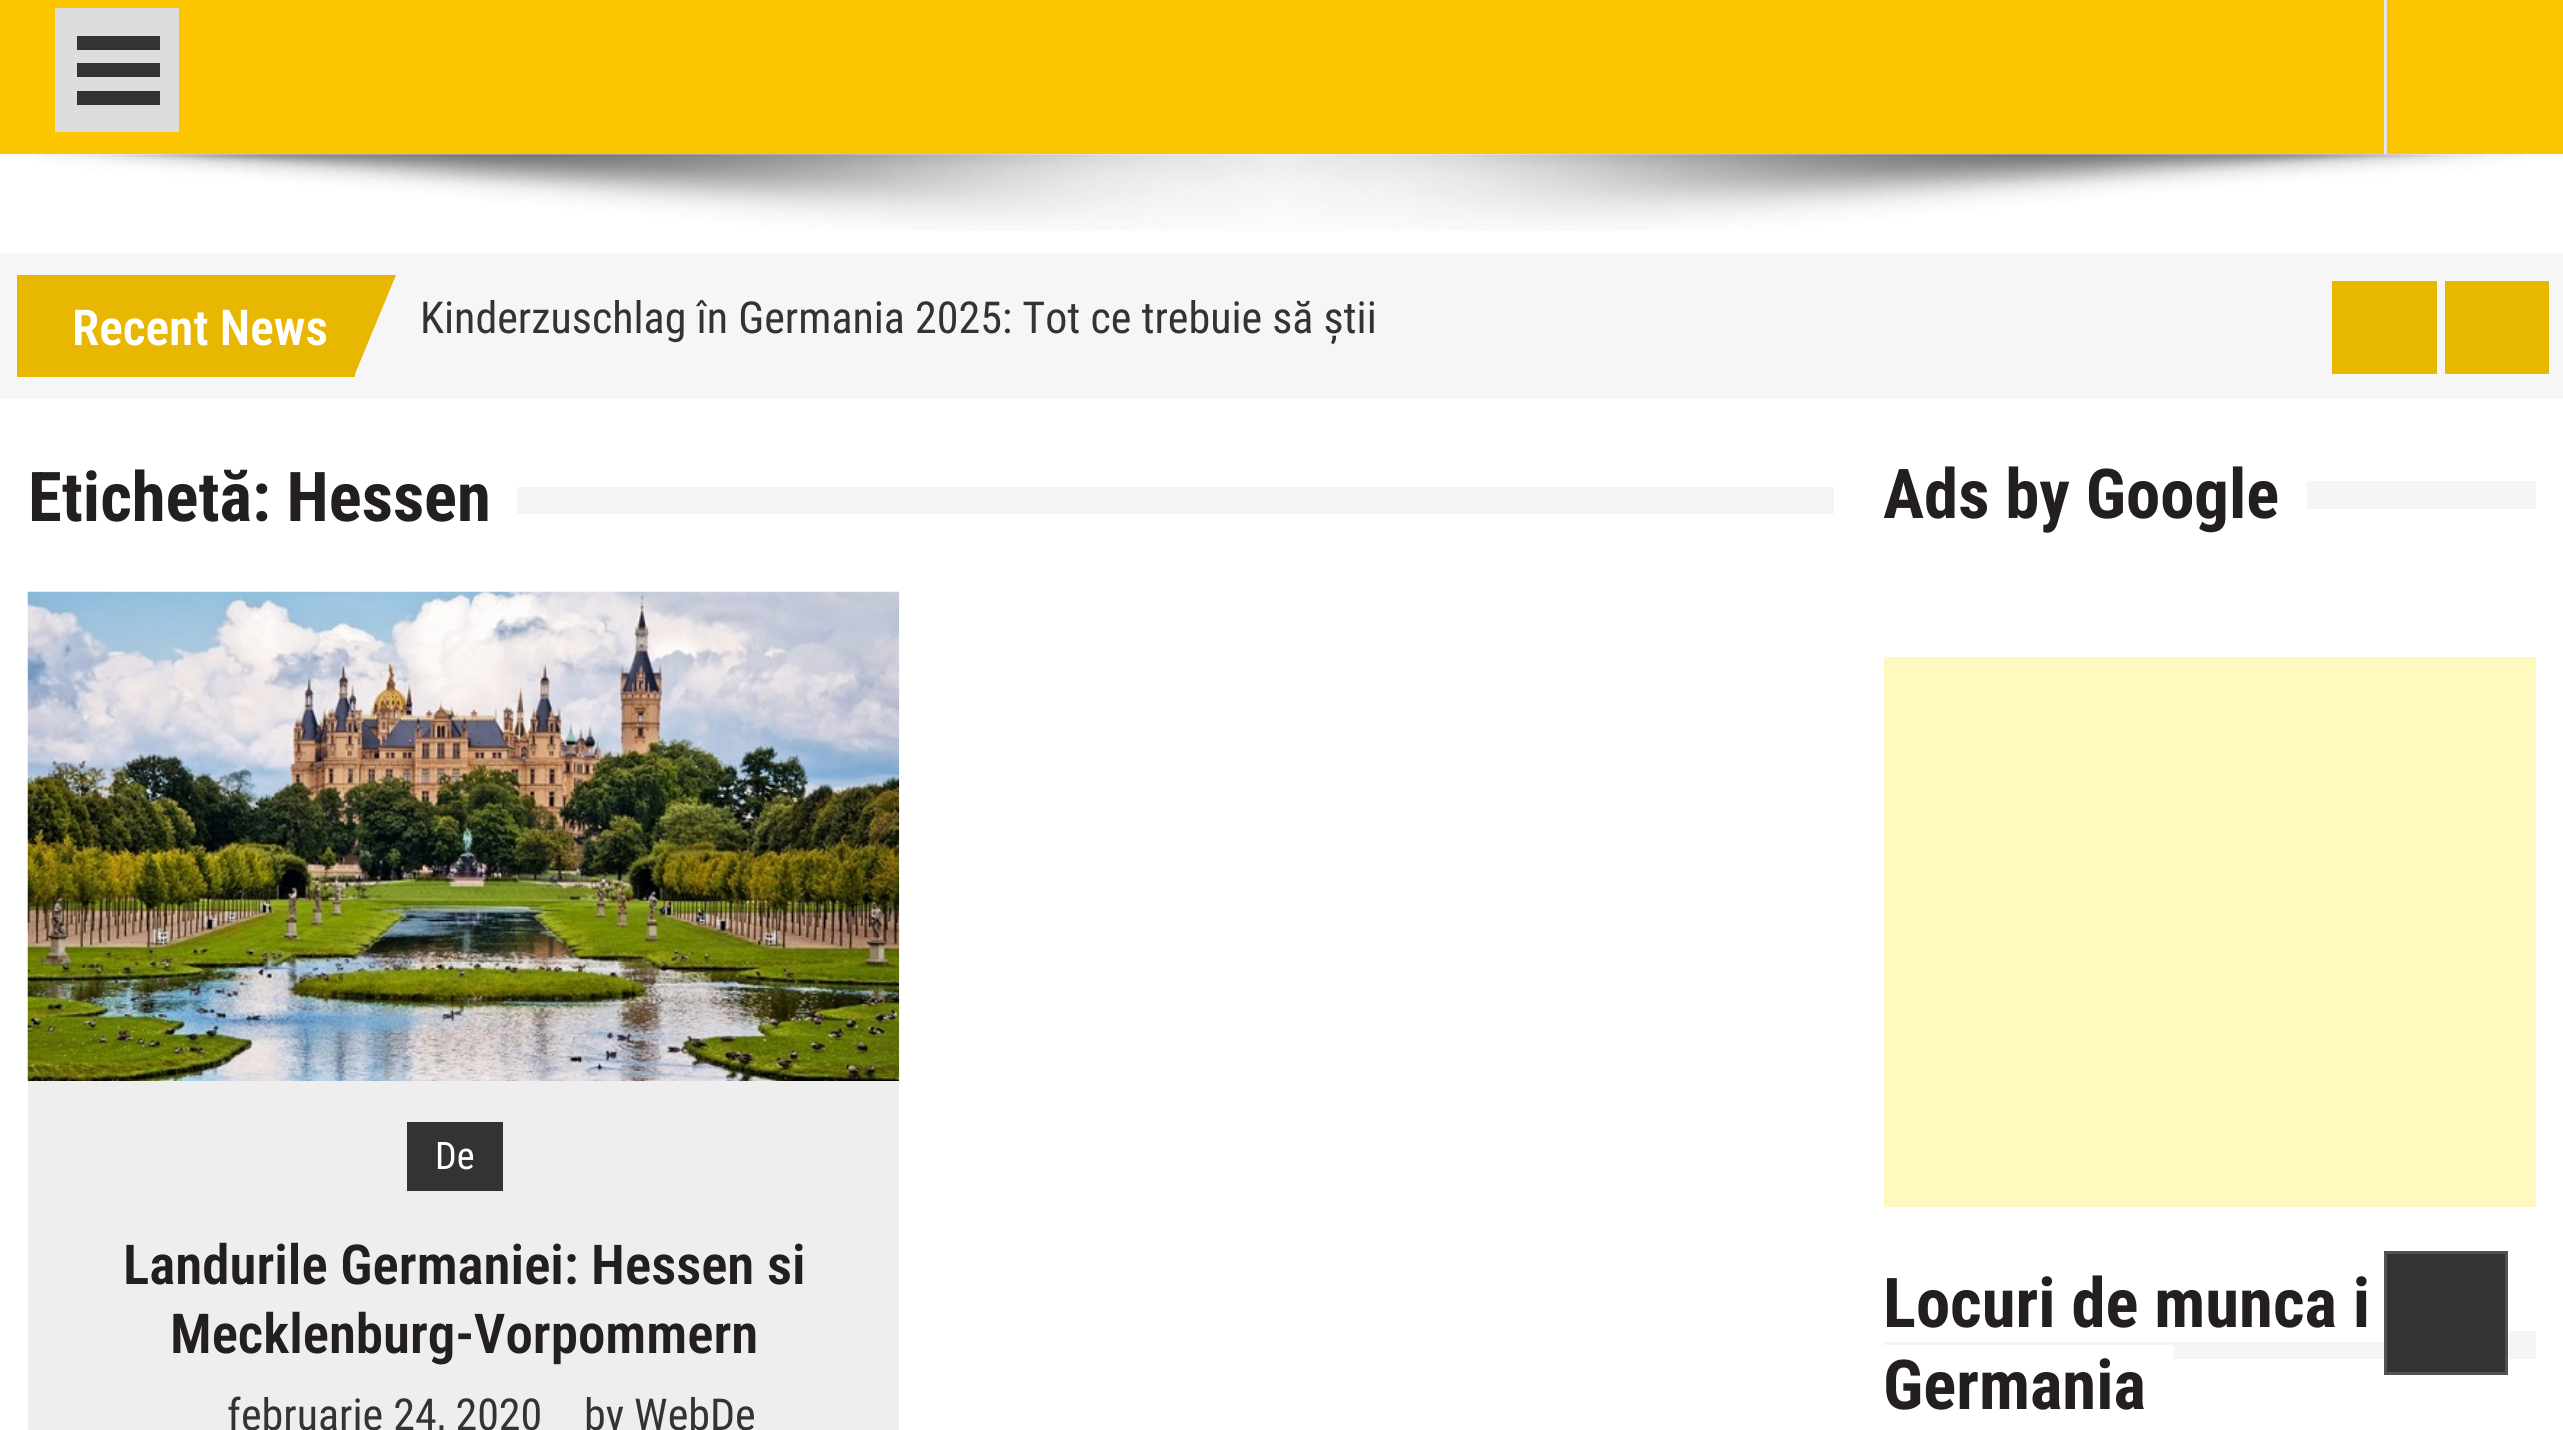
import math
import cairo

surface = cairo.ImageSurface(cairo.FORMAT_RGB24, 2563, 1430)
ctx = cairo.Context(surface)
options = cairo.FontOptions()
options.set_hint_metrics(cairo.HINT_METRICS_OFF)
options.set_hint_style(cairo.HINT_STYLE_NONE)
ctx.set_font_options(options)
ctx.set_miter_limit(4)


def set_color(code):
    ctx.set_source_rgb(*(v / 255 for v in bytes.fromhex(code[-6:])))


def draw_text(x, y, s, family, size, color, bold=False, italic=False):
    ctx.select_font_face(family, cairo.FONT_SLANT_ITALIC if italic else cairo.FONT_SLANT_NORMAL, cairo.FONT_WEIGHT_BOLD if bold else cairo.FONT_WEIGHT_NORMAL)
    ctx.set_font_size(size)
    set_color(color)
    ctx.move_to(x, y)
    ctx.show_text(s)


def fill_rect(x, y, w, h, color):
    set_color(color)
    ctx.rectangle(x, y, w, h)
    ctx.fill()


def draw_image(path, x, y, w, h):
    ctx.save()
    ctx.set_source_surface(cairo.ImageSurface.create_from_png(path), x, y)
    ctx.rectangle(x, y, w, h)
    ctx.fill()
    ctx.restore()


set_color("#ffffff")
ctx.paint()
fill_rect(0, 0, 2563, 154, "#fbc600")
fill_rect(55, 8, 124, 124, "#dddddd")
fill_rect(77, 36, 83, 14, "#333333")
fill_rect(77, 63, 83, 14, "#333333")
fill_rect(77, 91, 83, 14, "#333333")
fill_rect(2384, 0, 3, 154, "#e5e5e5")
draw_image("assets/img1.png", 36, 154, 2488, 77)
fill_rect(0, 253, 2563, 146, "#f6f6f6")
fill_rect(17, 275, 338, 102, "#e8b701")
draw_text(72, 345, "Recent News", "Roboto Condensed SemiBold", 49.5, "#ffffff")
set_color("#e8b701")
ctx.new_path()
ctx.move_to(355, 275)
ctx.line_to(396, 275)
ctx.line_to(355, 374)
ctx.close_path()
ctx.fill()
draw_text(420, 333, "Kinderzuschlag în Germania 2025: Tot ce trebuie să știi", "Roboto Condensed", 44, "#333333")
fill_rect(2332, 281, 105, 93, "#e8b701")
fill_rect(2445, 281, 104, 93, "#e8b701")
draw_text(28, 521, "Etichetă: Hessen", "Roboto Condensed", 68.75, "#231f20", bold=True)
fill_rect(517, 487, 1317, 27, "#f5f5f5")
draw_image("assets/img2.png", 27, 591, 873, 490)
fill_rect(28, 1081, 871, 349, "#eeeeee")
fill_rect(407, 1122, 96, 69, "#333333")
draw_text(435, 1169, "De", "Roboto Condensed", 38, "#ffffff")
draw_text(123, 1284, "Landurile Germaniei: Hessen si", "Roboto Condensed SemiBold", 55, "#231f20")
draw_text(170, 1353, "Mecklenburg-Vorpommern", "Roboto Condensed SemiBold", 55, "#231f20")
draw_text(227, 1430, "februarie 24, 2020", "Roboto Condensed", 44, "#333333")
draw_text(584, 1430, "by WebDe", "Roboto Condensed", 44, "#333333")
draw_text(1883, 518, "Ads by Google", "Roboto Condensed", 68.75, "#231f20", bold=True)
fill_rect(2307, 481, 229, 28, "#f5f5f5")
fill_rect(1884, 657, 652, 550, "#fff9c0")
draw_text(1883, 1327, "Locuri de munca i", "Roboto Condensed", 68.75, "#231f20", bold=True)
fill_rect(1884, 1331, 652, 28, "#f5f5f5")
fill_rect(1884, 1331, 500, 11, "#ffffff")
fill_rect(1884, 1345, 289, 14, "#ffffff")
draw_text(1883, 1409, "Germania", "Roboto Condensed", 68.75, "#231f20", bold=True)
set_color("#333333")
ctx.rectangle(2385.5, 1252.5, 121, 121)
ctx.fill_preserve()
set_color("#525252")
ctx.set_line_width(3)
ctx.stroke()
surface.write_to_png("output.png")
